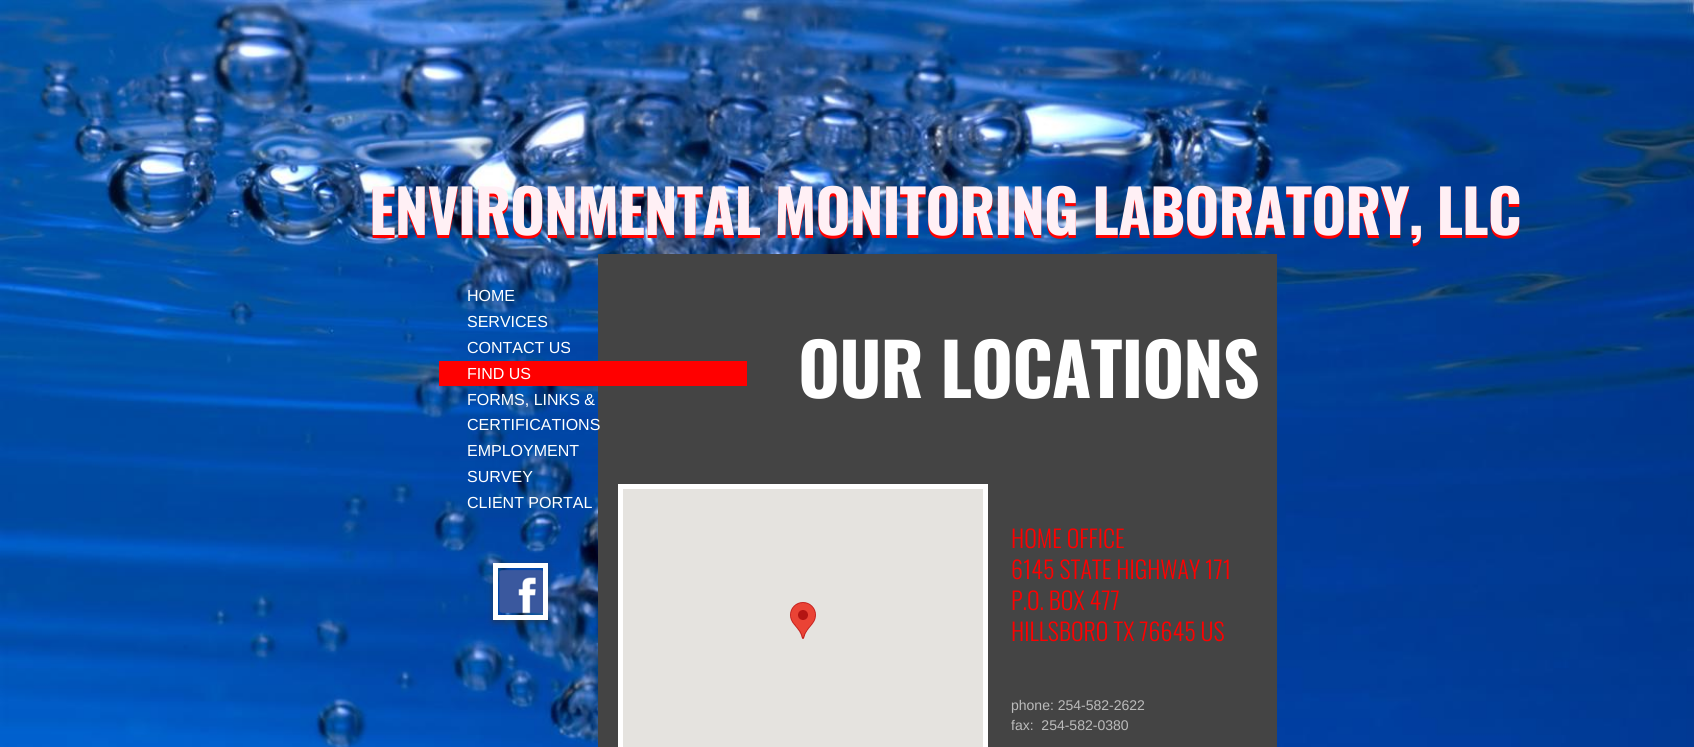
import math
import cairo

surface = cairo.ImageSurface(cairo.FORMAT_RGB24, 1694, 747)
ctx = cairo.Context(surface)
options = cairo.FontOptions()
options.set_hint_metrics(cairo.HINT_METRICS_OFF)
options.set_hint_style(cairo.HINT_STYLE_NONE)
ctx.set_font_options(options)
ctx.set_miter_limit(4)


def set_color(code):
    ctx.set_source_rgb(*(v / 255 for v in bytes.fromhex(code[-6:])))


def draw_text(x, y, s, family, size, color, bold=False, italic=False):
    ctx.select_font_face(family, cairo.FONT_SLANT_ITALIC if italic else cairo.FONT_SLANT_NORMAL, cairo.FONT_WEIGHT_BOLD if bold else cairo.FONT_WEIGHT_NORMAL)
    ctx.set_font_size(size)
    set_color(color)
    ctx.move_to(x, y)
    ctx.show_text(s)


def draw_spaced(x, y, s, letter, word):
    ctx.move_to(x, y)
    for ch in s:
        ctx.show_text(ch)
        ctx.rel_move_to(letter + word * (ch == ' '), 0)


def fill_rect(x, y, w, h, color):
    set_color(color)
    ctx.rectangle(x, y, w, h)
    ctx.fill()


def rounded_rect(x, y, w, h, r):
    ctx.new_sub_path()
    for i, (u, v) in enumerate([(x + w - r, y + h - r), (x + r, y + h - r), (x + r, y + r), (x + w - r, y + r)]):
        ctx.arc(u, v, r, i * math.pi / 2, (i + 1) * math.pi / 2)
    ctx.close_path()


def draw_shadow(x, y, w, h, r, blur, alpha):
    ctx.push_group_with_content(cairo.CONTENT_ALPHA)
    ctx.set_operator(cairo.OPERATOR_SOURCE)
    for i in range(15, -16, -2):
        e = blur * i / 6
        if min(w, h) + 2 * e > 0:
            ctx.set_source_rgba(0, 0, 0, alpha * math.erfc((i - 1) / 8.5) / 2)
            rounded_rect(x - e, y - e, w + 2 * e, h + 2 * e, max(0, min(r + e + blur * .6, min(w, h) / 2 + e)))
            ctx.fill()
    ctx.mask(ctx.pop_group())


def draw_image(path, x, y, w, h):
    ctx.save()
    ctx.set_source_surface(cairo.ImageSurface.create_from_png(path), x, y)
    ctx.rectangle(x, y, w, h)
    ctx.fill()
    ctx.restore()


set_color("#ffffff")
ctx.paint()
draw_image("assets/img1.png", 0, 0, 1694, 747)
ctx.select_font_face("Oswald", cairo.FONT_SLANT_NORMAL, cairo.FONT_WEIGHT_BOLD)
ctx.set_font_size(60)
set_color("#ff0000")
draw_spaced(369, 238, "ENVIRONMENTAL MONITORING LABORATORY, LLC", -1, 0)
set_color("#fff0f5")
draw_spaced(369, 235, "ENVIRONMENTAL MONITORING LABORATORY, LLC", -1, 0)
draw_text(467, 301, "HOME", "Arimo", 16, "#ffffff")
draw_text(467, 327, "SERVICES", "Arimo", 16, "#ffffff")
draw_text(467, 353, "CONTACT US", "Arimo", 16, "#ffffff")
fill_rect(598, 254, 679, 493, "#444444")
fill_rect(439, 361, 308, 25, "#ff0000")
draw_text(467, 379, "FIND US", "Arimo", 16, "#ffffff")
draw_text(467, 405, "FORMS, LINKS &", "Arimo", 16, "#ffffff")
draw_text(467, 430, "CERTIFICATIONS", "Arimo", 16, "#ffffff")
draw_text(467, 456, "EMPLOYMENT", "Arimo", 16, "#ffffff")
draw_text(467, 482, "SURVEY", "Arimo", 16, "#ffffff")
draw_text(467, 508, "CLIENT PORTAL", "Arimo", 16, "#ffffff")
ctx.select_font_face("Oswald", cairo.FONT_SLANT_NORMAL, cairo.FONT_WEIGHT_BOLD)
ctx.set_font_size(72)
draw_spaced(798, 398, "OUR LOCATIONS", -1, 0)
ctx.save()
ctx.set_fill_rule(cairo.FILL_RULE_EVEN_ODD)
ctx.new_path()
ctx.move_to(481, 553)
ctx.line_to(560, 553)
ctx.line_to(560, 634)
ctx.line_to(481, 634)
ctx.close_path()
ctx.move_to(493, 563)
ctx.line_to(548, 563)
ctx.line_to(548, 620)
ctx.line_to(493, 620)
ctx.close_path()
ctx.clip()
set_color("#323232")
draw_shadow(493, 565, 55, 57, 0, 3.5, 0.6)
ctx.restore()
ctx.rectangle(495.5, 565.5, 50, 52)
ctx.set_line_width(5)
ctx.stroke()
draw_image("assets/img2.png", 499, 569, 44, 45)
ctx.rectangle(620.5, 486.5, 365, 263)
ctx.stroke()
fill_rect(623, 489, 360, 258, "#e5e3df")
draw_image("assets/img3.png", 790, 602, 26, 37)
draw_text(1011, 548, "HOME OFFICE", "Oswald Light", 24, "#ff0000")
draw_text(1011, 579, "6145 STATE HIGHWAY 171", "Oswald Light", 24, "#ff0000")
draw_text(1011, 610, "P.O. BOX 477", "Oswald Light", 24, "#ff0000")
draw_text(1011, 641, "HILLSBORO TX 76645 US", "Oswald Light", 24, "#ff0000")
draw_text(1011, 710, "phone: 254-582-2622", "Arimo", 14, "#bbbbbb")
draw_text(1011, 730, "fax:  254-582-0380", "Arimo", 14, "#bbbbbb")
surface.write_to_png("output.png")
